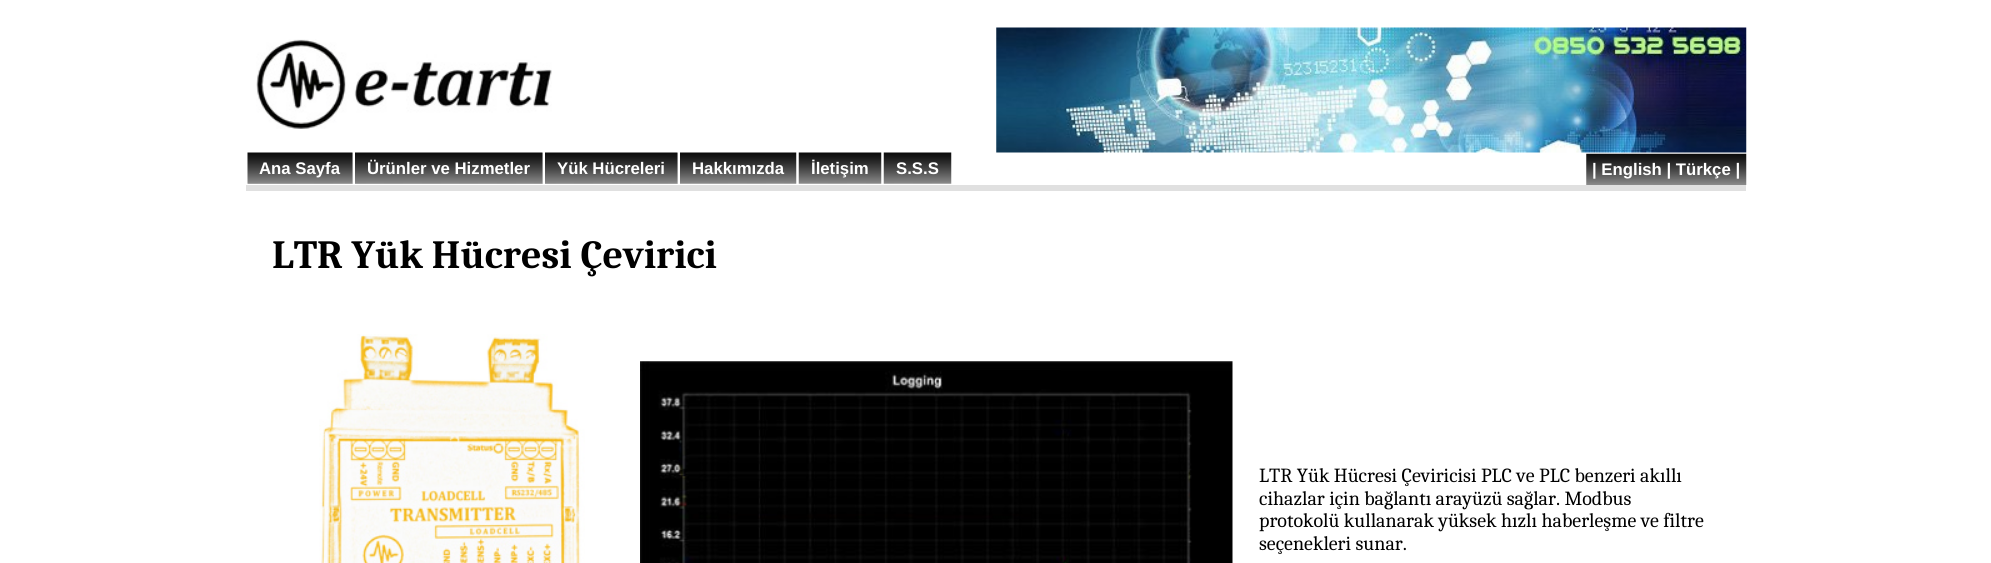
import math
import cairo

surface = cairo.ImageSurface(cairo.FORMAT_RGB24, 1991, 563)
ctx = cairo.Context(surface)
options = cairo.FontOptions()
options.set_hint_metrics(cairo.HINT_METRICS_OFF)
options.set_hint_style(cairo.HINT_STYLE_NONE)
ctx.set_font_options(options)
ctx.set_miter_limit(4)


def set_color(code):
    ctx.set_source_rgb(*(v / 255 for v in bytes.fromhex(code[-6:])))


def draw_text(x, y, s, family, size, color, bold=False, italic=False):
    ctx.select_font_face(family, cairo.FONT_SLANT_ITALIC if italic else cairo.FONT_SLANT_NORMAL, cairo.FONT_WEIGHT_BOLD if bold else cairo.FONT_WEIGHT_NORMAL)
    ctx.set_font_size(size)
    set_color(color)
    ctx.move_to(x, y)
    ctx.show_text(s)


def fill_rect(x, y, w, h, color):
    set_color(color)
    ctx.rectangle(x, y, w, h)
    ctx.fill()


def draw_image(path, x, y, w, h):
    ctx.save()
    ctx.set_source_surface(cairo.ImageSurface.create_from_png(path), x, y)
    ctx.rectangle(x, y, w, h)
    ctx.fill()
    ctx.restore()


set_color("#ffffff")
ctx.paint()
draw_image("assets/img1.png", 256, 39, 296, 90)
fill_rect(248, 153, 105, 31, "#e0e0e0")
draw_image("assets/img2.png", 247, 152, 106, 32)
draw_text(259, 174, "Ana Sayfa", "Liberation Sans", 16.75, "#ffffff", bold=True)
fill_rect(355, 153, 188, 31, "#e0e0e0")
draw_image("assets/img3.png", 355, 152, 188, 32)
draw_text(367, 174, "Ürünler ve Hizmetler", "Liberation Sans", 16.75, "#ffffff", bold=True)
fill_rect(545, 153, 133, 31, "#e0e0e0")
draw_image("assets/img4.png", 545, 152, 133, 32)
draw_text(557, 174, "Yük Hücreleri", "Liberation Sans", 16.75, "#ffffff", bold=True)
draw_image("assets/img5.png", 680, 152, 117, 32)
draw_text(692, 174, "Hakkımızda", "Liberation Sans", 16.75, "#ffffff", bold=True)
draw_image("assets/img6.png", 798, 152, 84, 32)
draw_text(811, 174, "İletişim", "Liberation Sans", 16.75, "#ffffff", bold=True)
draw_image("assets/img7.png", 883, 152, 69, 32)
draw_text(896, 174, "S.S.S", "Liberation Sans", 16.75, "#ffffff", bold=True)
draw_image("assets/img8.png", 996, 27, 751, 126)
draw_image("assets/img9.png", 1586, 153, 161, 32)
draw_text(1592, 175, "| English | Türkçe |", "Liberation Sans", 16.75, "#ffffff", bold=True)
fill_rect(246, 185, 1500, 6, "#e0e0e0")
draw_text(272, 268, "LTR Yük Hücresi Çevirici", "Caladea", 40, "#000000", bold=True)
draw_image("assets/img10.png", 319, 334, 266, 229)
draw_image("assets/img11.png", 640, 361, 593, 202)
draw_text(1259, 482, "LTR Yük Hücresi Çeviricisi PLC ve PLC benzeri akıllı", "Caladea", 20, "#000000")
draw_text(1259, 505, "cihazlar için bağlantı arayüzü sağlar. Modbus", "Caladea", 20, "#000000")
draw_text(1259, 527, "protokolü kullanarak yüksek hızlı haberleşme ve filtre", "Caladea", 20, "#000000")
draw_text(1259, 550, "seçenekleri sunar.", "Caladea", 20, "#000000")
surface.write_to_png("output.png")
